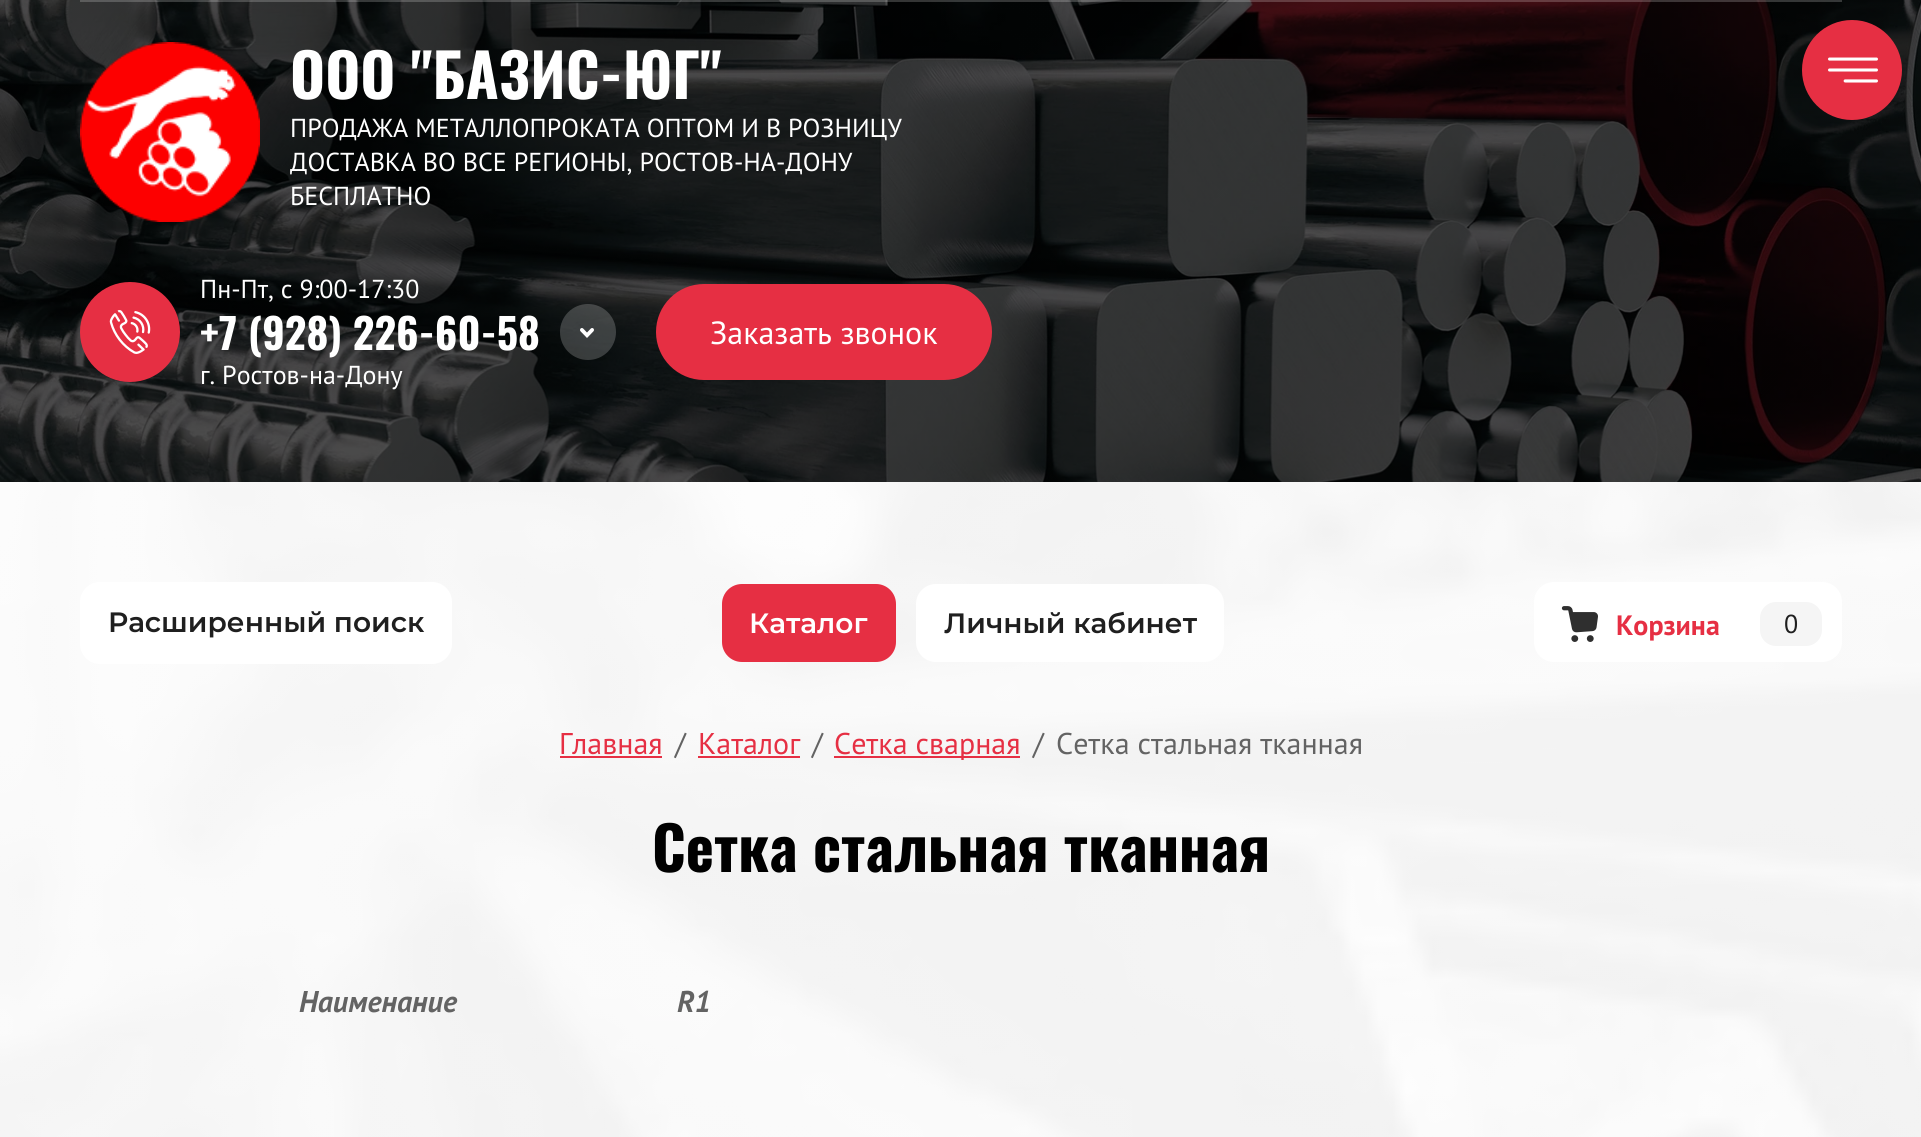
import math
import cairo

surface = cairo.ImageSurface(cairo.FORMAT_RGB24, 1921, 1137)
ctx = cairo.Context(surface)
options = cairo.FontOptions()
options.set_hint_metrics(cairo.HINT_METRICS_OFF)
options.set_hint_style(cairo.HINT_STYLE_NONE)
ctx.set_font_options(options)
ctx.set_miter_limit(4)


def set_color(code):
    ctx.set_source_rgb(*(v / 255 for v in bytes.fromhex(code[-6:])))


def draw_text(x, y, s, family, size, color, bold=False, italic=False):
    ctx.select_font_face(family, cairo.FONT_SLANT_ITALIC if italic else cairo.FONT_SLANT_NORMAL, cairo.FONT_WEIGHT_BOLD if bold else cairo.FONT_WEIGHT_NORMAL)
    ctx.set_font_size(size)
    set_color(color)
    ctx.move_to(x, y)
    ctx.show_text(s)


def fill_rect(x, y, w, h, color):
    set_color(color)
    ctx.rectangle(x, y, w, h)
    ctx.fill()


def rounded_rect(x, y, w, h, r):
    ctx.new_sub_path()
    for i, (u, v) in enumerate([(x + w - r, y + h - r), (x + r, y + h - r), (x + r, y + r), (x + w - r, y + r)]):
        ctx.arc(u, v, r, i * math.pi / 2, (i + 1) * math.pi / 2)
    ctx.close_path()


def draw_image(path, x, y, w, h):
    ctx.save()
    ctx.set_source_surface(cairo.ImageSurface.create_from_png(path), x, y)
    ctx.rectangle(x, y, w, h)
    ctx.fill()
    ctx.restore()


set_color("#ffffff")
ctx.paint()
draw_image("assets/img1.png", 0, 0, 1921, 482)
ctx.set_source_rgba(1, 1, 1, 0.2)
ctx.rectangle(80, 0, 1762, 2)
ctx.fill()
draw_image("assets/img2.png", 80, 42, 180, 180)
draw_text(290, 99, "ООО \"БАЗИС-ЮГ\"", "Oswald", 60, "#ffffff", bold=True)
draw_text(290, 137, "ПРОДАЖА МЕТАЛЛОПРОКАТА ОПТОМ И В РОЗНИЦУ", "PT Sans", 26, "#ffffff")
draw_text(290, 171, "ДОСТАВКА ВО ВСЕ РЕГИОНЫ, РОСТОВ-НА-ДОНУ", "PT Sans", 26, "#ffffff")
draw_text(290, 205, "БЕСПЛАТНО", "PT Sans", 26, "#ffffff")
set_color("#e62f43")
ctx.new_path()
ctx.arc(130, 332, 50, 0, 2 * math.pi)
ctx.fill()
draw_image("assets/img3.png", 109, 310, 42, 44)
draw_text(200, 298, "Пн-Пт, с 9:00-17:30", "PT Sans", 26, "#ffffff")
draw_text(200, 350, "+7 (928) 226-60-58", "Oswald", 42, "#ffffff", bold=True)
draw_text(200, 384, "г. Ростов-на-Дону", "PT Sans", 26, "#ffffff")
ctx.set_source_rgba(1, 1, 1, 0.2)
ctx.new_path()
ctx.arc(588, 332, 28, 0, 2 * math.pi)
ctx.fill()
draw_image("assets/img4.png", 580, 328, 14, 10)
set_color("#e62f43")
rounded_rect(658, 286, 332, 92, 46)
ctx.fill_preserve()
ctx.set_line_width(4)
ctx.stroke()
draw_text(710, 344, "Заказать звонок", "PT Sans", 32, "#ffffff")
set_color("#e62f43")
ctx.new_path()
ctx.arc(1852, 70, 50, 0, 2 * math.pi)
ctx.fill()
draw_image("assets/img5.png", 1828, 57, 50, 26)
draw_image("assets/img6.png", 0, 482, 1921, 655)
set_color("#ffffff")
rounded_rect(80, 582, 372, 82, 20)
ctx.fill()
draw_text(108, 632, "Расширенный поиск", "Montserrat SemiBold", 28, "#1f1f1f")
set_color("#e62f43")
rounded_rect(722, 584, 174, 78, 20)
ctx.fill()
draw_text(749, 633, "Каталог", "Montserrat SemiBold", 28, "#ffffff")
rounded_rect(916, 584, 308, 78, 20)
ctx.fill()
draw_text(944, 633, "Личный кабинет", "Montserrat SemiBold", 28, "#1f1f1f")
set_color("#ffffff")
rounded_rect(1534, 582, 308, 80, 20)
ctx.fill()
draw_image("assets/img7.png", 1561, 606, 37, 36)
draw_text(1616, 635, "Корзина", "PT Sans", 28, "#e62f43", bold=True)
set_color("#f5f5f5")
rounded_rect(1760, 602, 62, 44, 16)
ctx.fill()
draw_text(1784, 633, "0", "PT Sans", 26, "#1f1f1f")
draw_text(559, 754, "Главная", "PT Sans", 30, "#e62f43")
fill_rect(560, 756, 102, 2, "#e62f43")
draw_text(675, 754, "/", "PT Sans", 30, "#636363")
draw_text(698, 754, "Каталог", "PT Sans", 30, "#e62f43")
fill_rect(698, 756, 102, 2, "#e62f43")
draw_text(812, 754, "/", "PT Sans", 30, "#636363")
fill_rect(834, 756, 186, 2, "#e62f43")
draw_text(834, 754, "Сетка сварная", "PT Sans", 30, "#e62f43")
draw_text(1033, 754, "/", "PT Sans", 30, "#636363")
draw_text(1056, 754, "Сетка стальная тканная", "PT Sans", 30, "#636363")
draw_text(652, 872, "Сетка стальная тканная", "Oswald", 60, "#000000", bold=True)
draw_text(299, 1012, "Наименание", "PT Sans", 30, "#636363", bold=True, italic=True)
draw_text(677, 1012, "R1", "PT Sans", 30, "#636363", bold=True, italic=True)
surface.write_to_png("output.png")
